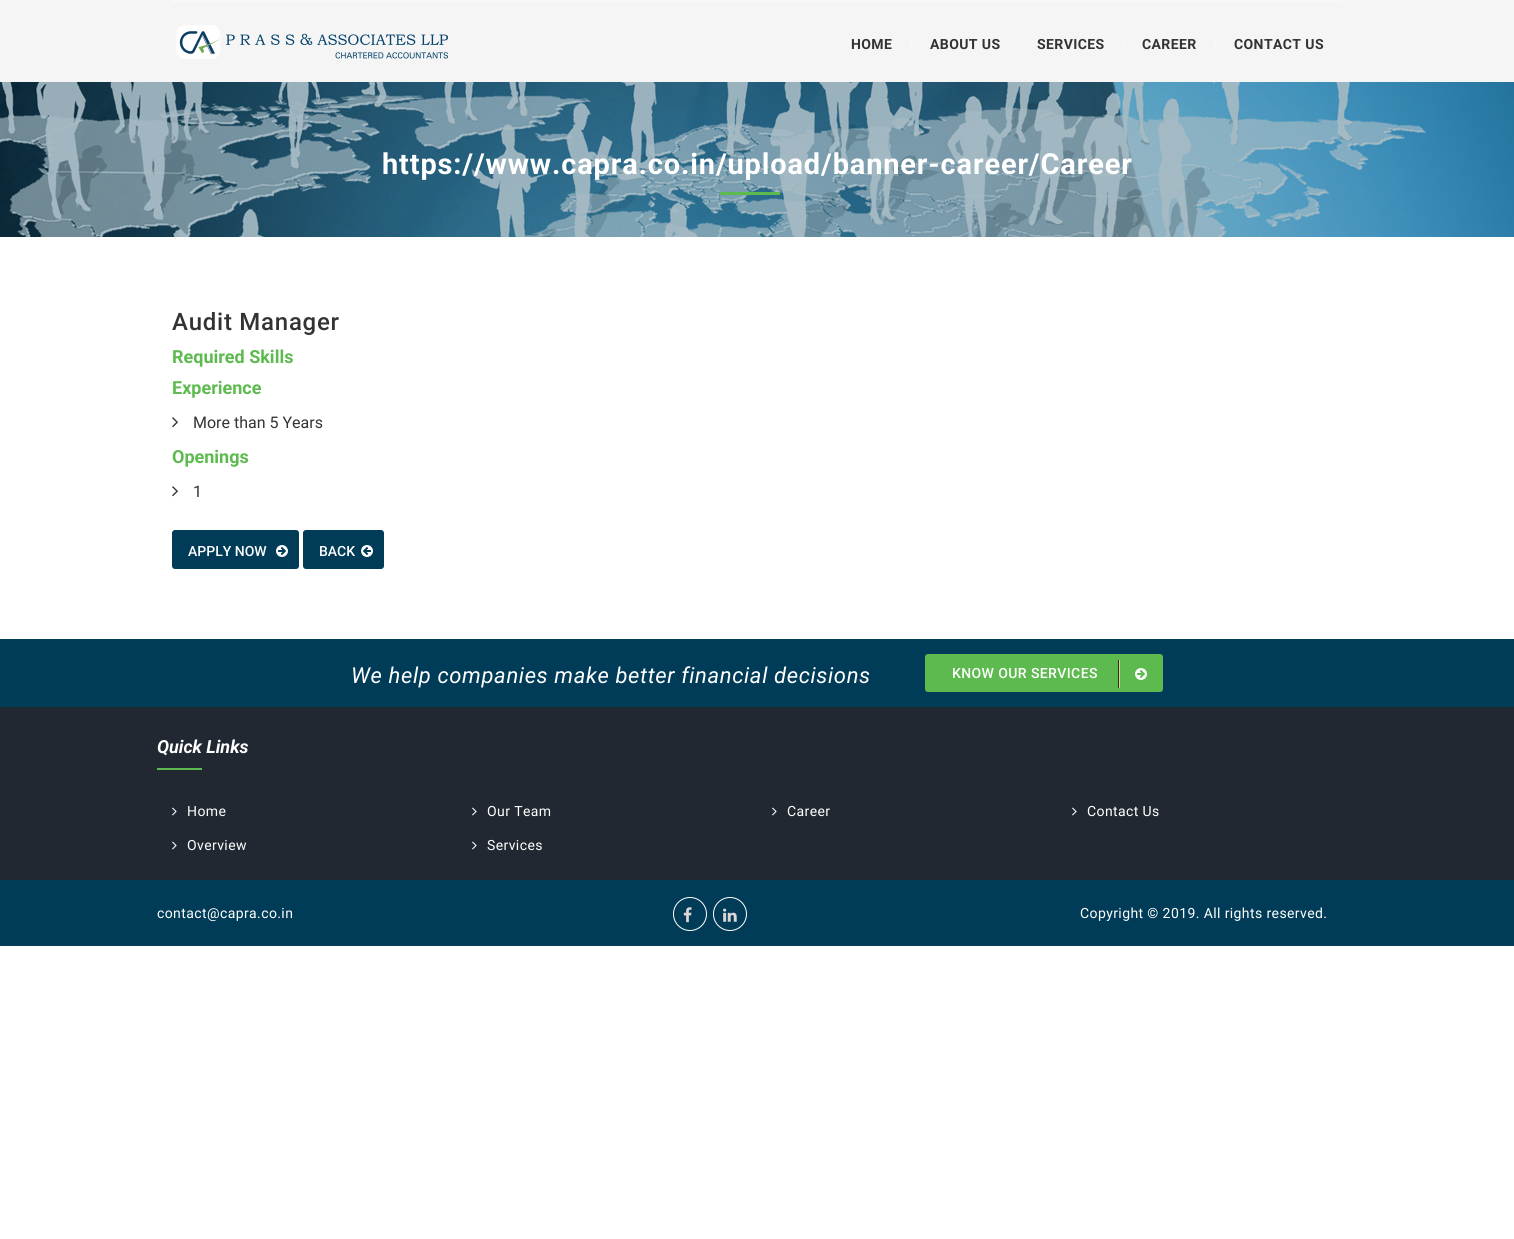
import math
import cairo

surface = cairo.ImageSurface(cairo.FORMAT_RGB24, 1514, 1239)
ctx = cairo.Context(surface)
options = cairo.FontOptions()
options.set_hint_metrics(cairo.HINT_METRICS_OFF)
options.set_hint_style(cairo.HINT_STYLE_NONE)
ctx.set_font_options(options)
ctx.set_miter_limit(4)


def set_color(code):
    ctx.set_source_rgb(*(v / 255 for v in bytes.fromhex(code[-6:])))


def draw_text(x, y, s, family, size, color, bold=False, italic=False):
    ctx.select_font_face(family, cairo.FONT_SLANT_ITALIC if italic else cairo.FONT_SLANT_NORMAL, cairo.FONT_WEIGHT_BOLD if bold else cairo.FONT_WEIGHT_NORMAL)
    ctx.set_font_size(size)
    set_color(color)
    ctx.move_to(x, y)
    ctx.show_text(s)


def draw_spaced(x, y, s, letter, word):
    ctx.move_to(x, y)
    for ch in s:
        ctx.show_text(ch)
        ctx.rel_move_to(letter + word * (ch == ' '), 0)


def fill_rect(x, y, w, h, color):
    set_color(color)
    ctx.rectangle(x, y, w, h)
    ctx.fill()


def rounded_rect(x, y, w, h, r):
    ctx.new_sub_path()
    for i, (u, v) in enumerate([(x + w - r, y + h - r), (x + r, y + h - r), (x + r, y + r), (x + w - r, y + r)]):
        ctx.arc(u, v, r, i * math.pi / 2, (i + 1) * math.pi / 2)
    ctx.close_path()


def draw_image(path, x, y, w, h):
    ctx.save()
    ctx.set_source_surface(cairo.ImageSurface.create_from_png(path), x, y)
    ctx.rectangle(x, y, w, h)
    ctx.fill()
    ctx.restore()


set_color("#ffffff")
ctx.paint()
fill_rect(0, 0, 1514, 82, "#f5f5f5")
fill_rect(172, 0, 1170, 2, "#f8f8f8")
draw_image("assets/img1.png", 176, 25, 272, 34)
ctx.new_path()
ctx.move_to(911.5, 30)
ctx.line_to(911.5, 59)
set_color("#f9f9f9")
ctx.set_line_width(1)
ctx.set_dash([3, 2.2])
ctx.stroke()
ctx.select_font_face("Roboto", cairo.FONT_SLANT_NORMAL, cairo.FONT_WEIGHT_BOLD)
ctx.set_font_size(14)
set_color("#333333")
draw_spaced(851, 49, "HOME", 0.4, 0)
ctx.new_path()
ctx.move_to(1018.5, 30)
ctx.line_to(1018.5, 59)
set_color("#f9f9f9")
ctx.stroke()
set_color("#333333")
draw_spaced(930, 49, "ABOUT US", 0.4, 0)
ctx.new_path()
ctx.move_to(1123.5, 30)
ctx.line_to(1123.5, 59)
set_color("#f9f9f9")
ctx.stroke()
set_color("#333333")
draw_spaced(1037, 49, "SERVICES", 0.4, 0)
ctx.new_path()
ctx.move_to(1215.5, 30)
ctx.line_to(1215.5, 59)
set_color("#f9f9f9")
ctx.stroke()
set_color("#333333")
draw_spaced(1142, 49, "CAREER", 0.4, 0)
draw_spaced(1234, 49, "CONTACT US", 0.4, 0)
draw_image("assets/img2.png", 0, 82, 1514, 155)
ctx.set_font_size(28.95)
set_color("#ffffff")
draw_spaced(382, 174, "https://www.capra.co.in/upload/banner-career/Career", 0.87, 0)
fill_rect(720, 192, 60, 3, "#5dba4e")
ctx.select_font_face("Roboto Medium")
ctx.set_font_size(24)
set_color("#333333")
draw_spaced(172, 330, "Audit Manager", 0.75, 0)
draw_text(172, 363, "Required Skills", "Roboto", 18, "#5dba4e", bold=True)
draw_text(172, 394, "Experience", "Roboto", 18, "#5dba4e", bold=True)
draw_image("assets/img3.png", 172, 417, 6, 11)
draw_text(193, 428, "More than 5 Years", "Roboto", 16, "#333333")
draw_text(172, 463, "Openings", "Roboto", 18, "#5dba4e", bold=True)
draw_image("assets/img3.png", 172, 486, 6, 11)
draw_text(193, 497, "1", "Roboto", 16, "#333333")
set_color("#003c57")
rounded_rect(172, 530, 127, 39, 3)
ctx.fill()
draw_text(188, 556, "APPLY NOW", "Roboto Medium", 14, "#ffffff")
draw_image("assets/img4.png", 276, 545, 12, 12)
set_color("#003c57")
rounded_rect(303, 530, 81, 39, 3)
ctx.fill()
draw_text(319, 556, "BACK", "Roboto Medium", 14, "#ffffff")
draw_image("assets/img5.png", 361, 545, 12, 12)
fill_rect(0, 639, 1514, 68, "#003c57")
ctx.select_font_face("Roboto", cairo.FONT_SLANT_ITALIC)
ctx.set_font_size(22)
set_color("#ffffff")
draw_spaced(351, 683, "We help companies make better financial decisions", 0.65, 0)
set_color("#5dba4e")
rounded_rect(925, 654, 238, 38, 3)
ctx.fill()
ctx.select_font_face("Roboto Medium")
ctx.set_font_size(14)
set_color("#ffffff")
draw_spaced(952, 678, "KNOW OUR SERVICES", 0.4, 0)
fill_rect(1119, 660, 1, 28, "#ffcd47")
fill_rect(1118, 660, 1, 28, "#003c57")
draw_image("assets/img6.png", 1135, 668, 12, 12)
fill_rect(0, 707, 1514, 173, "#212832")
draw_text(157, 753, "Quick Links", "Roboto", 18, "#ffffff", bold=True, italic=True)
fill_rect(157, 768, 45, 2, "#5dba4e")
draw_image("assets/img7.png", 172, 807, 5, 9)
ctx.select_font_face("Roboto")
ctx.set_font_size(14)
set_color("#ffffff")
draw_spaced(187, 816, "Home", 0.4, 0)
draw_image("assets/img7.png", 172, 841, 5, 9)
draw_spaced(187, 850, "Overview", 0.4, 0)
draw_image("assets/img7.png", 472, 807, 5, 9)
draw_spaced(487, 816, "Our Team", 0.4, 0)
draw_image("assets/img7.png", 472, 841, 5, 9)
draw_spaced(487, 850, "Services", 0.4, 0)
draw_image("assets/img7.png", 772, 807, 5, 9)
draw_spaced(787, 816, "Career", 0.4, 0)
draw_image("assets/img7.png", 1072, 807, 5, 9)
draw_spaced(1087, 816, "Contact Us", 0.4, 0)
fill_rect(0, 880, 1514, 66, "#003c57")
set_color("#ffffff")
draw_spaced(157, 918, "contact@capra.co.in", 0.4, 0)
ctx.new_path()
ctx.arc(690, 914, 16.5, 0, 2 * math.pi)
ctx.set_dash([])
ctx.stroke()
draw_image("assets/img8.png", 683, 907, 9, 16)
ctx.arc(730, 914, 16.5, 0, 2 * math.pi)
ctx.stroke()
draw_image("assets/img9.png", 723, 908, 14, 14)
draw_spaced(1080, 918, "Copyright © 2019. All rights reserved.", 0.4, 0)
surface.write_to_png("output.png")
